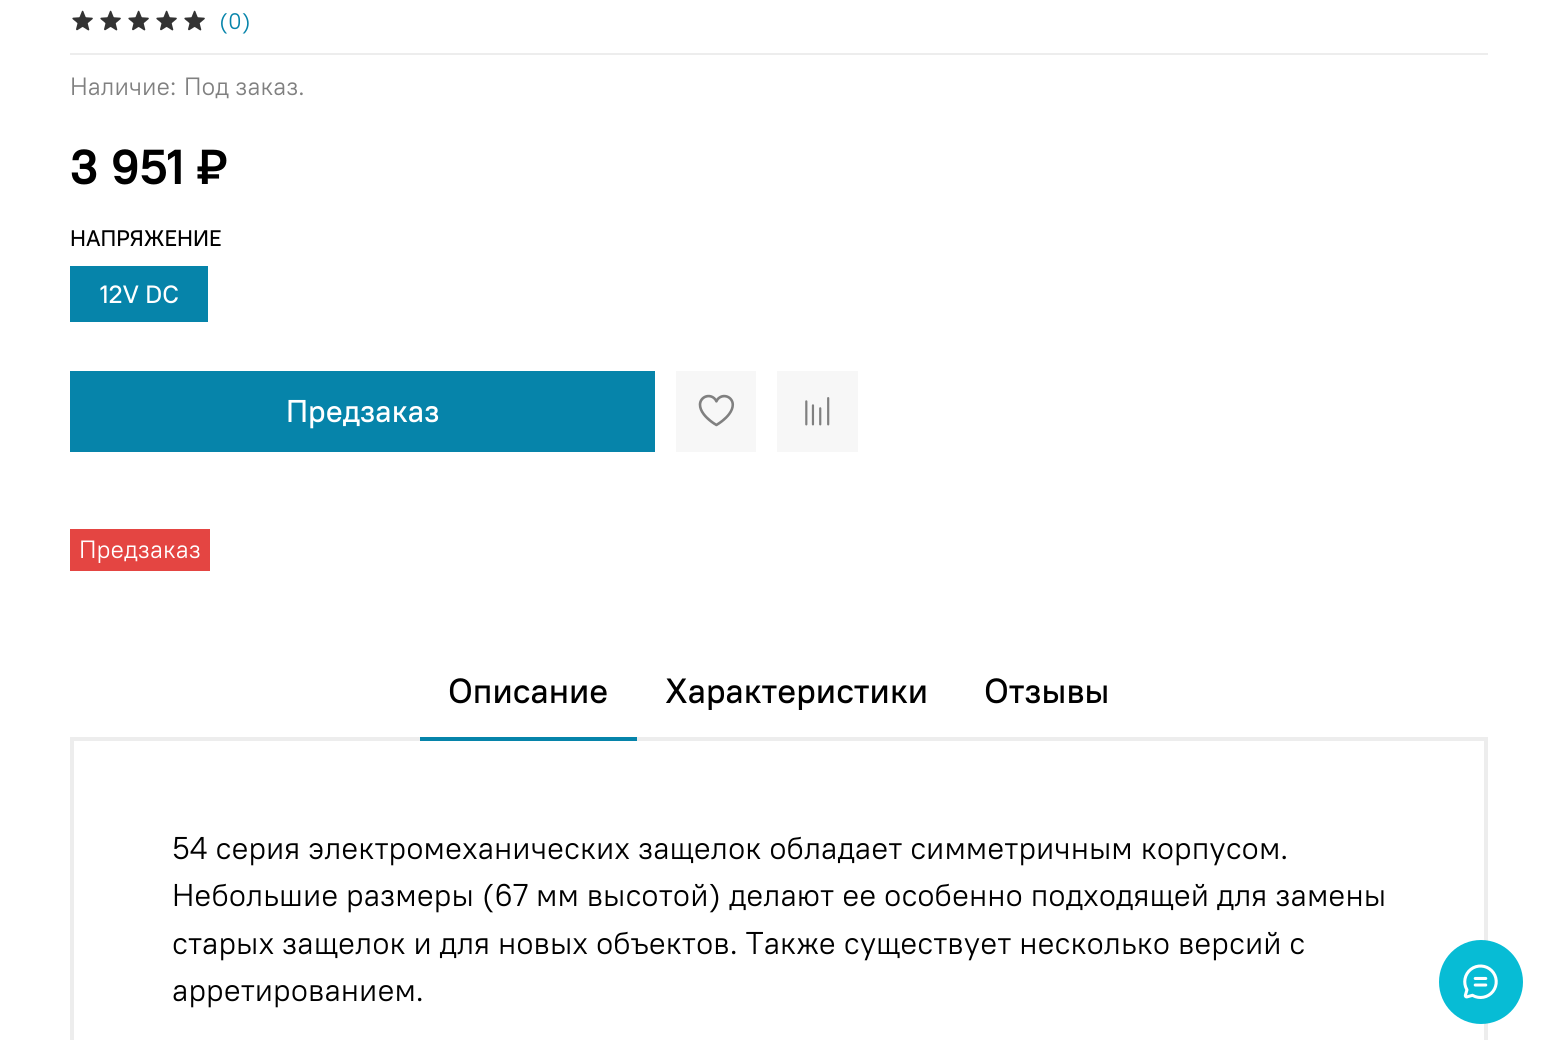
import math
import cairo

surface = cairo.ImageSurface(cairo.FORMAT_RGB24, 1557, 1040)
ctx = cairo.Context(surface)
options = cairo.FontOptions()
options.set_hint_metrics(cairo.HINT_METRICS_OFF)
options.set_hint_style(cairo.HINT_STYLE_NONE)
ctx.set_font_options(options)
ctx.set_miter_limit(4)


def set_color(code):
    ctx.set_source_rgb(*(v / 255 for v in bytes.fromhex(code[-6:])))


def draw_text(x, y, s, family, size, color, bold=False, italic=False):
    ctx.select_font_face(family, cairo.FONT_SLANT_ITALIC if italic else cairo.FONT_SLANT_NORMAL, cairo.FONT_WEIGHT_BOLD if bold else cairo.FONT_WEIGHT_NORMAL)
    ctx.set_font_size(size)
    set_color(color)
    ctx.move_to(x, y)
    ctx.show_text(s)


def fill_rect(x, y, w, h, color):
    set_color(color)
    ctx.rectangle(x, y, w, h)
    ctx.fill()


def draw_image(path, x, y, w, h):
    ctx.save()
    ctx.set_source_surface(cairo.ImageSurface.create_from_png(path), x, y)
    ctx.rectangle(x, y, w, h)
    ctx.fill()
    ctx.restore()


set_color("#ffffff")
ctx.paint()
draw_image("assets/img1.png", 72, 10, 21, 21)
draw_image("assets/img1.png", 100, 10, 21, 21)
draw_image("assets/img1.png", 128, 10, 21, 21)
draw_image("assets/img1.png", 156, 10, 21, 21)
draw_image("assets/img1.png", 184, 10, 21, 21)
draw_text(219, 29, "(0)", "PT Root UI", 22.5, "#0684aa")
fill_rect(70, 53, 1418, 2, "#ededed")
draw_text(70, 95, "Наличие:", "PT Root UI", 25, "#808080")
draw_text(184, 95, "Под заказ.", "PT Root UI", 25, "#808080")
draw_text(70, 184, "3 951 ₽", "PT Root UI", 49, "#000000", bold=True)
draw_text(70, 246, "НАПРЯЖЕНИЕ", "PT Root UI Medium", 22.5, "#000000")
fill_rect(70, 266, 138, 56, "#0684aa")
draw_text(100, 303, "12V DC", "PT Root UI Medium", 25, "#ffffff")
fill_rect(70, 371, 585, 81, "#0684aa")
draw_text(286, 422, "Предзаказ", "PT Root UI Medium", 31.5, "#ffffff")
fill_rect(676, 371, 80, 81, "#f7f7f7")
draw_image("assets/img2.png", 698, 394, 37, 33)
fill_rect(777, 371, 81, 81, "#f7f7f7")
draw_image("assets/img3.png", 805, 397, 25, 29)
fill_rect(70, 529, 140, 42, "#e44542")
draw_text(79, 558, "Предзаказ", "PT Root UI", 25, "#ffffff")
ctx.rectangle(72, 739, 1414, 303)
set_color("#ededed")
ctx.set_line_width(4)
ctx.stroke()
fill_rect(420, 737, 217, 4, "#0684aa")
draw_text(448, 703, "Описание", "PT Root UI Medium", 35, "#000000")
draw_text(665, 703, "Характеристики", "PT Root UI Medium", 35, "#000000")
draw_text(984, 703, "Отзывы", "PT Root UI Medium", 35, "#000000")
draw_text(172, 859, "54 серия электромеханических защелок обладает симметричным корпусом.", "PT Root UI", 31.5, "#000000")
draw_text(172, 906, "Небольшие размеры (67 мм высотой) делают ее особенно подходящей для замены", "PT Root UI", 31.5, "#000000")
draw_text(172, 954, "старых защелок и для новых объектов. Также существует несколько версий с", "PT Root UI", 31.5, "#000000")
draw_text(172, 1001, "арретированием.", "PT Root UI", 31.5, "#000000")
set_color("#07bcd5")
ctx.new_path()
ctx.arc(1481, 982, 42, 0, 2 * math.pi)
ctx.fill()
draw_image("assets/img4.png", 1463, 964, 35, 35)
surface.write_to_png("output.png")
